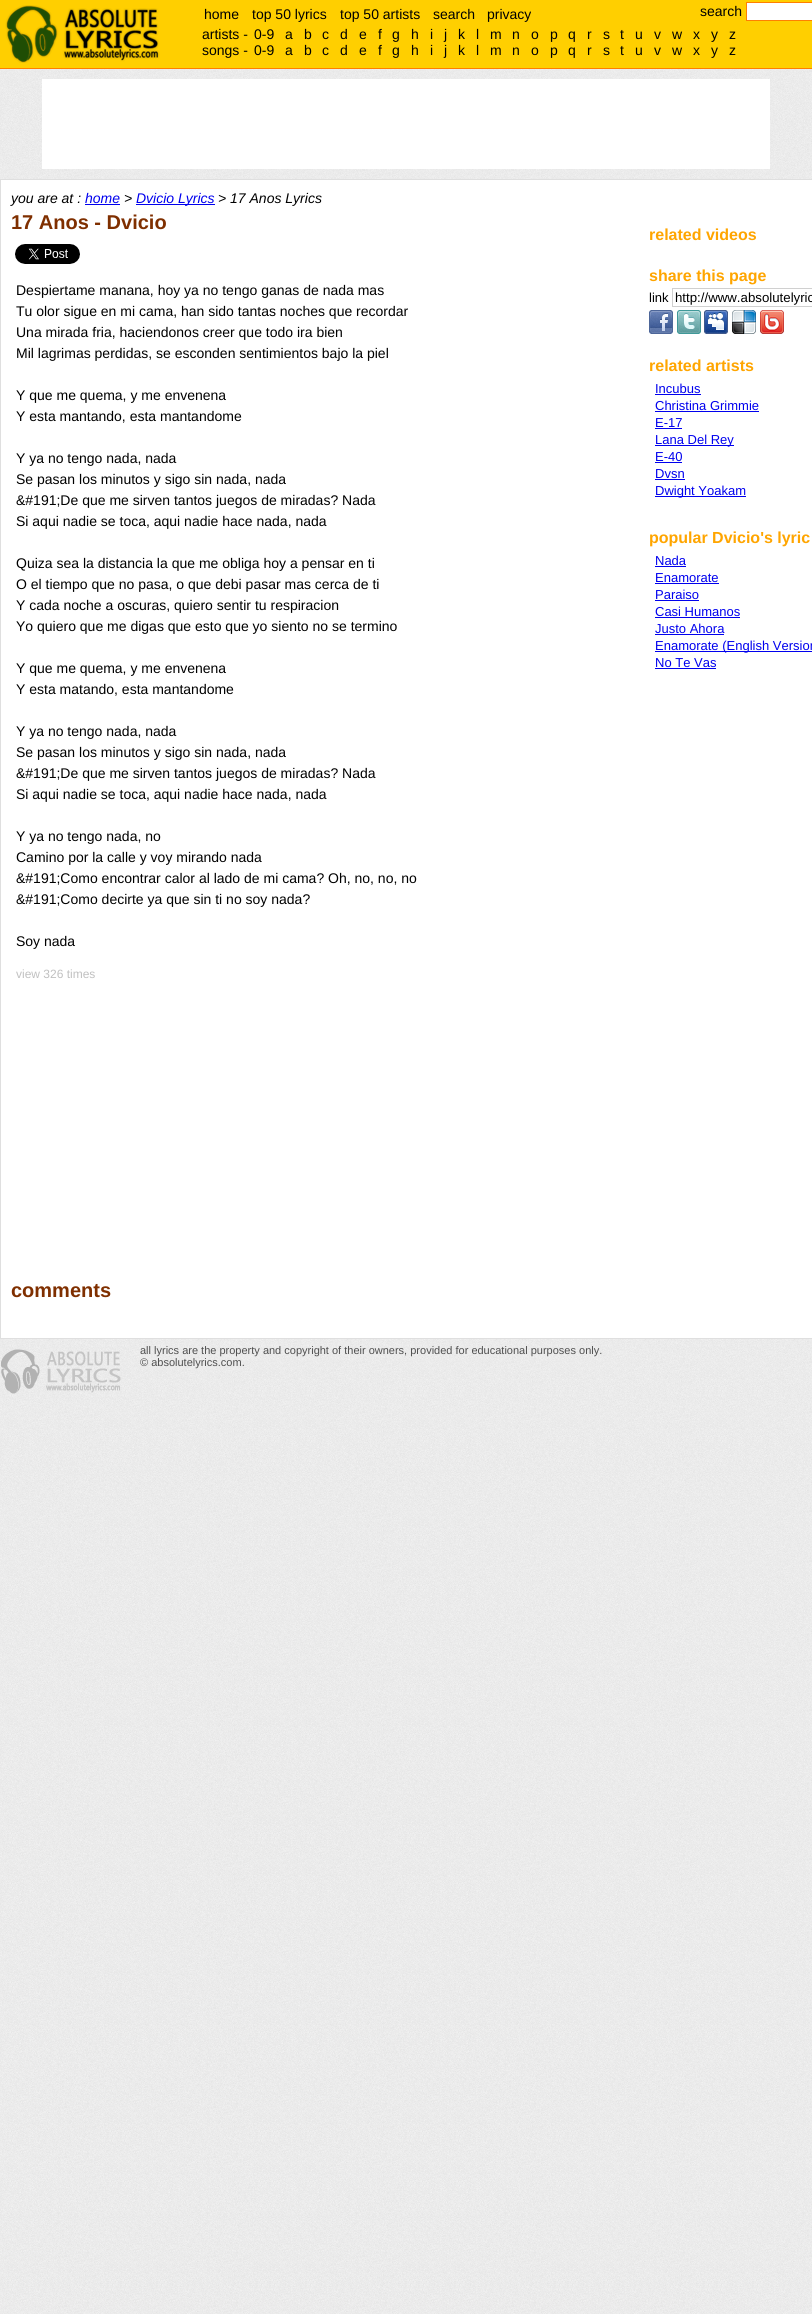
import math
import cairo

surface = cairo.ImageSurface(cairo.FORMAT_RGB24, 812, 2314)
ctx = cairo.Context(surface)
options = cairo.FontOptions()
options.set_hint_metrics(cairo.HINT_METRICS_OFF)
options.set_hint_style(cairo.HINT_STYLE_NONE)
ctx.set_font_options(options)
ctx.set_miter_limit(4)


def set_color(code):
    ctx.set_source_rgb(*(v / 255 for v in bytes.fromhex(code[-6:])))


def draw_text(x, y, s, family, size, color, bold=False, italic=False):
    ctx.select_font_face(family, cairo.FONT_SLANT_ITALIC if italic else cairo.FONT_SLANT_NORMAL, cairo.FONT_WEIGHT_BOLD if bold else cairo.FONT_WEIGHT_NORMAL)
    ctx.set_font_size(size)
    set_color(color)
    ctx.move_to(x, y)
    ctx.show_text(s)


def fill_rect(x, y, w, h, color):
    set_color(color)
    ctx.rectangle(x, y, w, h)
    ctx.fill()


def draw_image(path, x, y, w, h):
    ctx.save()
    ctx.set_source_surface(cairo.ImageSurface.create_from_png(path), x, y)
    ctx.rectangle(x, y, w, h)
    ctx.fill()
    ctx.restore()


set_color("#ffffff")
ctx.paint()
draw_image("assets/img1.png", 0, 69, 812, 2245)
fill_rect(0, 0, 812, 68, "#ffcf00")
fill_rect(0, 68, 812, 1, "#ff7f00")
draw_image("assets/img2.png", 5, 5, 155, 58)
draw_text(204, 19, "home", "Liberation Sans", 14, "#000000")
draw_text(252, 19, "top 50 lyrics", "Liberation Sans", 14, "#000000")
draw_text(340, 19, "top 50 artists", "Liberation Sans", 14, "#000000")
draw_text(433, 19, "search", "Liberation Sans", 14, "#000000")
draw_text(487, 19, "privacy", "Liberation Sans", 14, "#000000")
draw_text(700, 16, "search", "Liberation Sans", 14, "#000000")
set_color("#ffffff")
ctx.rectangle(746.5, 2.5, 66, 18)
ctx.fill_preserve()
set_color("#ff7f00")
ctx.set_line_width(1)
ctx.stroke()
draw_text(202, 39, "artists -", "Liberation Sans", 14, "#000000")
draw_text(254, 39, "0-9", "Liberation Sans", 14, "#000000")
draw_text(285, 39, "a", "Liberation Sans", 14, "#000000")
draw_text(304, 39, "b", "Liberation Sans", 14, "#000000")
draw_text(322, 39, "c", "Liberation Sans", 14, "#000000")
draw_text(340, 39, "d", "Liberation Sans", 14, "#000000")
draw_text(359, 39, "e", "Liberation Sans", 14, "#000000")
draw_text(378, 39, "f", "Liberation Sans", 14, "#000000")
draw_text(392, 39, "g", "Liberation Sans", 14, "#000000")
draw_text(411, 39, "h", "Liberation Sans", 14, "#000000")
draw_text(430, 39, "i", "Liberation Sans", 14, "#000000")
draw_text(444, 39, "j", "Liberation Sans", 14, "#000000")
draw_text(458, 39, "k", "Liberation Sans", 14, "#000000")
draw_text(476, 39, "l", "Liberation Sans", 14, "#000000")
draw_text(490, 39, "m", "Liberation Sans", 14, "#000000")
draw_text(512, 39, "n", "Liberation Sans", 14, "#000000")
draw_text(531, 39, "o", "Liberation Sans", 14, "#000000")
draw_text(550, 39, "p", "Liberation Sans", 14, "#000000")
draw_text(568, 39, "q", "Liberation Sans", 14, "#000000")
draw_text(587, 39, "r", "Liberation Sans", 14, "#000000")
draw_text(603, 39, "s", "Liberation Sans", 14, "#000000")
draw_text(620, 39, "t", "Liberation Sans", 14, "#000000")
draw_text(635, 39, "u", "Liberation Sans", 14, "#000000")
draw_text(654, 39, "v", "Liberation Sans", 14, "#000000")
draw_text(672, 39, "w", "Liberation Sans", 14, "#000000")
draw_text(693, 39, "x", "Liberation Sans", 14, "#000000")
draw_text(711, 39, "y", "Liberation Sans", 14, "#000000")
draw_text(729, 39, "z", "Liberation Sans", 14, "#000000")
draw_text(202, 55, "songs -", "Liberation Sans", 14, "#000000")
draw_text(254, 55, "0-9", "Liberation Sans", 14, "#000000")
draw_text(285, 55, "a", "Liberation Sans", 14, "#000000")
draw_text(304, 55, "b", "Liberation Sans", 14, "#000000")
draw_text(322, 55, "c", "Liberation Sans", 14, "#000000")
draw_text(340, 55, "d", "Liberation Sans", 14, "#000000")
draw_text(359, 55, "e", "Liberation Sans", 14, "#000000")
draw_text(378, 55, "f", "Liberation Sans", 14, "#000000")
draw_text(392, 55, "g", "Liberation Sans", 14, "#000000")
draw_text(411, 55, "h", "Liberation Sans", 14, "#000000")
draw_text(430, 55, "i", "Liberation Sans", 14, "#000000")
draw_text(444, 55, "j", "Liberation Sans", 14, "#000000")
draw_text(458, 55, "k", "Liberation Sans", 14, "#000000")
draw_text(476, 55, "l", "Liberation Sans", 14, "#000000")
draw_text(490, 55, "m", "Liberation Sans", 14, "#000000")
draw_text(512, 55, "n", "Liberation Sans", 14, "#000000")
draw_text(531, 55, "o", "Liberation Sans", 14, "#000000")
draw_text(550, 55, "p", "Liberation Sans", 14, "#000000")
draw_text(568, 55, "q", "Liberation Sans", 14, "#000000")
draw_text(587, 55, "r", "Liberation Sans", 14, "#000000")
draw_text(603, 55, "s", "Liberation Sans", 14, "#000000")
draw_text(620, 55, "t", "Liberation Sans", 14, "#000000")
draw_text(635, 55, "u", "Liberation Sans", 14, "#000000")
draw_text(654, 55, "v", "Liberation Sans", 14, "#000000")
draw_text(672, 55, "w", "Liberation Sans", 14, "#000000")
draw_text(693, 55, "x", "Liberation Sans", 14, "#000000")
draw_text(711, 55, "y", "Liberation Sans", 14, "#000000")
draw_text(729, 55, "z", "Liberation Sans", 14, "#000000")
fill_rect(42, 79, 728, 90, "#ffffff")
ctx.rectangle(0.5, 179.5, 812, 1159)
ctx.fill_preserve()
set_color("#dfdfdf")
ctx.stroke()
draw_text(11, 203, "you are at :", "Liberation Sans", 14, "#000000", italic=True)
draw_text(85, 203, "home", "Liberation Sans", 14, "#0000ee", italic=True)
fill_rect(85, 204, 35, 1, "#0000ee")
draw_text(124, 203, ">", "Liberation Sans", 14, "#000000", italic=True)
fill_rect(136, 204, 79, 1, "#0000ee")
draw_text(136, 203, "Dvicio Lyrics", "Liberation Sans", 14, "#0000ee", italic=True)
draw_text(218, 203, "> 17 Anos Lyrics", "Liberation Sans", 14, "#000000", italic=True)
draw_text(11, 229, "17 Anos - Dvicio", "Liberation Sans", 20, "#7f2f00", bold=True)
draw_image("assets/img3.png", 15, 244, 65, 20)
draw_text(16, 295, "Despiertame manana, hoy ya no tengo ganas de nada mas", "Liberation Sans", 14, "#000000")
draw_text(16, 316, "Tu olor sigue en mi cama, han sido tantas noches que recordar", "Liberation Sans", 14, "#000000")
draw_text(16, 337, "Una mirada fria, haciendonos creer que todo ira bien", "Liberation Sans", 14, "#000000")
draw_text(16, 358, "Mil lagrimas perdidas, se esconden sentimientos bajo la piel", "Liberation Sans", 14, "#000000")
draw_text(16, 400, "Y que me quema, y me envenena", "Liberation Sans", 14, "#000000")
draw_text(16, 421, "Y esta mantando, esta mantandome", "Liberation Sans", 14, "#000000")
draw_text(16, 463, "Y ya no tengo nada, nada", "Liberation Sans", 14, "#000000")
draw_text(16, 484, "Se pasan los minutos y sigo sin nada, nada", "Liberation Sans", 14, "#000000")
draw_text(16, 505, "&#191;De que me sirven tantos juegos de miradas? Nada", "Liberation Sans", 14, "#000000")
draw_text(16, 526, "Si aqui nadie se toca, aqui nadie hace nada, nada", "Liberation Sans", 14, "#000000")
draw_text(16, 568, "Quiza sea la distancia la que me obliga hoy a pensar en ti", "Liberation Sans", 14, "#000000")
draw_text(16, 589, "O el tiempo que no pasa, o que debi pasar mas cerca de ti", "Liberation Sans", 14, "#000000")
draw_text(16, 610, "Y cada noche a oscuras, quiero sentir tu respiracion", "Liberation Sans", 14, "#000000")
draw_text(16, 631, "Yo quiero que me digas que esto que yo siento no se termino", "Liberation Sans", 14, "#000000")
draw_text(16, 673, "Y que me quema, y me envenena", "Liberation Sans", 14, "#000000")
draw_text(16, 694, "Y esta matando, esta mantandome", "Liberation Sans", 14, "#000000")
draw_text(16, 736, "Y ya no tengo nada, nada", "Liberation Sans", 14, "#000000")
draw_text(16, 757, "Se pasan los minutos y sigo sin nada, nada", "Liberation Sans", 14, "#000000")
draw_text(16, 778, "&#191;De que me sirven tantos juegos de miradas? Nada", "Liberation Sans", 14, "#000000")
draw_text(16, 799, "Si aqui nadie se toca, aqui nadie hace nada, nada", "Liberation Sans", 14, "#000000")
draw_text(16, 841, "Y ya no tengo nada, no", "Liberation Sans", 14, "#000000")
draw_text(16, 862, "Camino por la calle y voy mirando nada", "Liberation Sans", 14, "#000000")
draw_text(16, 883, "&#191;Como encontrar calor al lado de mi cama? Oh, no, no, no", "Liberation Sans", 14, "#000000")
draw_text(16, 904, "&#191;Como decirte ya que sin ti no soy nada?", "Liberation Sans", 14, "#000000")
draw_text(16, 946, "Soy nada", "Liberation Sans", 14, "#000000")
draw_text(16, 978, "view 326 times", "Liberation Sans", 12, "#c0c0c0")
draw_text(11, 1297, "comments", "Liberation Sans", 20, "#7f2f00", bold=True)
draw_text(649, 240, "related videos", "Liberation Sans", 16, "#ffa500", bold=True)
draw_text(649, 281, "share this page", "Liberation Sans", 16, "#ffa500", bold=True)
draw_text(649, 302, "link", "Liberation Sans", 13, "#000000")
ctx.rectangle(672.5, 288.5, 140, 18)
set_color("#d0d0d0")
ctx.stroke()
draw_text(675, 302, "http://www.absolutelyric", "Liberation Sans", 13.25, "#000000")
draw_image("assets/img4.png", 649, 310, 24, 24)
draw_image("assets/img5.png", 677, 310, 24, 24)
draw_image("assets/img6.png", 704, 310, 24, 24)
draw_image("assets/img7.png", 732, 310, 24, 24)
draw_image("assets/img8.png", 760, 310, 24, 24)
draw_text(649, 371, "related artists", "Liberation Sans", 16, "#ffa500", bold=True)
draw_text(655, 393, "Incubus", "Liberation Sans", 13, "#0000ee")
fill_rect(655, 394, 46, 1, "#0000ee")
draw_text(655, 410, "Christina Grimmie", "Liberation Sans", 13, "#0000ee")
fill_rect(655, 411, 104, 1, "#0000ee")
draw_text(655, 427, "E-17", "Liberation Sans", 13, "#0000ee")
fill_rect(655, 428, 27, 1, "#0000ee")
fill_rect(655, 445, 79, 1, "#0000ee")
draw_text(655, 444, "Lana Del Rey", "Liberation Sans", 13, "#0000ee")
draw_text(655, 461, "E-40", "Liberation Sans", 13, "#0000ee")
fill_rect(655, 462, 27, 1, "#0000ee")
draw_text(655, 478, "Dvsn", "Liberation Sans", 13, "#0000ee")
fill_rect(655, 479, 30, 1, "#0000ee")
fill_rect(655, 496, 91, 1, "#0000ee")
draw_text(655, 495, "Dwight Yoakam", "Liberation Sans", 13, "#0000ee")
draw_text(649, 543, "popular Dvicio's lyric", "Liberation Sans", 16, "#ffa500", bold=True)
draw_text(655, 565, "Nada", "Liberation Sans", 13, "#0000ee")
fill_rect(655, 566, 31, 1, "#0000ee")
draw_text(655, 582, "Enamorate", "Liberation Sans", 13, "#0000ee")
fill_rect(655, 583, 64, 1, "#0000ee")
draw_text(655, 599, "Paraiso", "Liberation Sans", 13, "#0000ee")
fill_rect(655, 600, 44, 1, "#0000ee")
draw_text(655, 616, "Casi Humanos", "Liberation Sans", 13, "#0000ee")
fill_rect(655, 617, 85, 1, "#0000ee")
draw_text(655, 633, "Justo Ahora", "Liberation Sans", 13, "#0000ee")
fill_rect(655, 634, 69, 1, "#0000ee")
fill_rect(655, 651, 157, 1, "#0000ee")
draw_text(655, 650, "Enamorate (English Version", "Liberation Sans", 13, "#0000ee")
draw_text(655, 667, "No Te Vas", "Liberation Sans", 13, "#0000ee")
fill_rect(655, 668, 61, 1, "#0000ee")
draw_image("assets/img9.png", 1, 1349, 120, 45)
draw_text(140, 1354, "all lyrics are the property and copyright of their owners, provided for educational purposes only.", "Liberation Sans", 11, "#4f4f4f")
draw_text(140, 1366, "© absolutelyrics.com.", "Liberation Sans", 11, "#4f4f4f")
surface.write_to_png("output.png")
